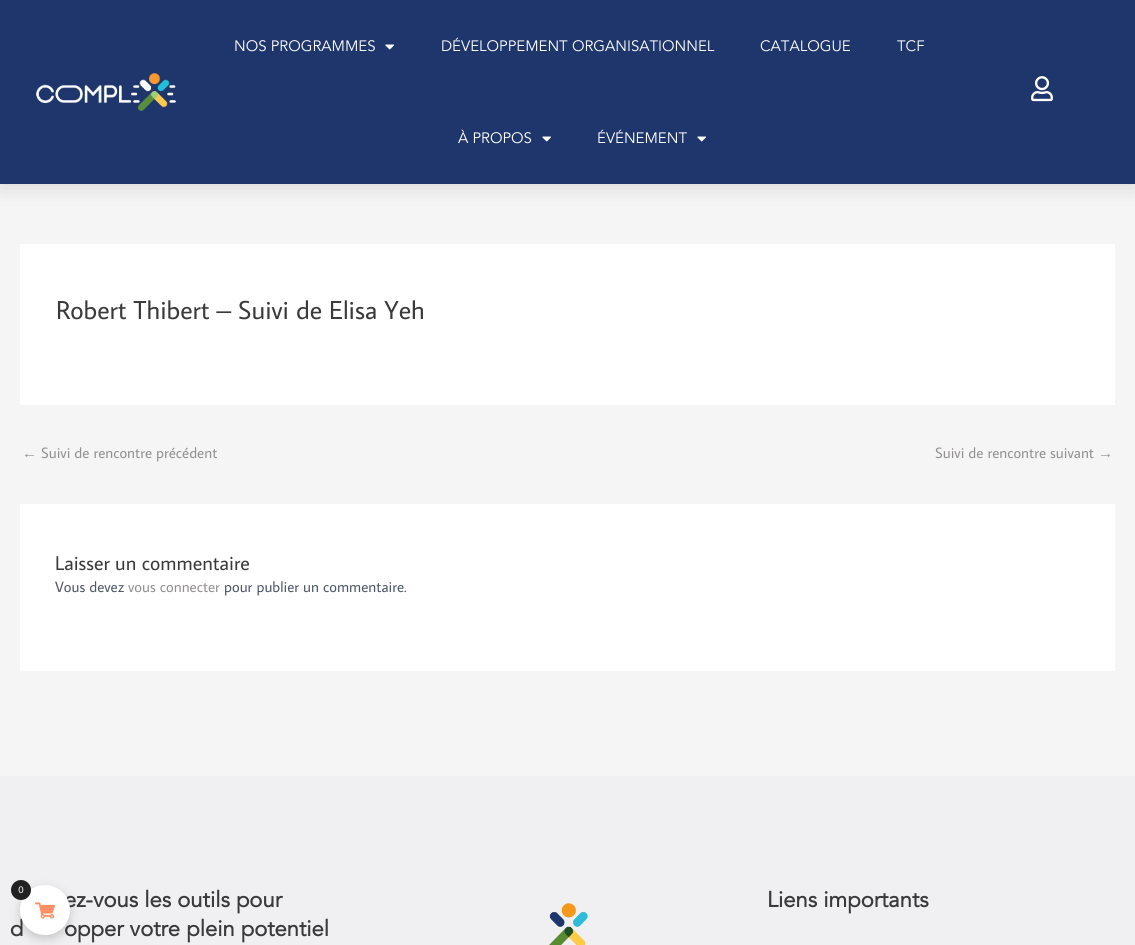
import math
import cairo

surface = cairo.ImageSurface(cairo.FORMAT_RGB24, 1135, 945)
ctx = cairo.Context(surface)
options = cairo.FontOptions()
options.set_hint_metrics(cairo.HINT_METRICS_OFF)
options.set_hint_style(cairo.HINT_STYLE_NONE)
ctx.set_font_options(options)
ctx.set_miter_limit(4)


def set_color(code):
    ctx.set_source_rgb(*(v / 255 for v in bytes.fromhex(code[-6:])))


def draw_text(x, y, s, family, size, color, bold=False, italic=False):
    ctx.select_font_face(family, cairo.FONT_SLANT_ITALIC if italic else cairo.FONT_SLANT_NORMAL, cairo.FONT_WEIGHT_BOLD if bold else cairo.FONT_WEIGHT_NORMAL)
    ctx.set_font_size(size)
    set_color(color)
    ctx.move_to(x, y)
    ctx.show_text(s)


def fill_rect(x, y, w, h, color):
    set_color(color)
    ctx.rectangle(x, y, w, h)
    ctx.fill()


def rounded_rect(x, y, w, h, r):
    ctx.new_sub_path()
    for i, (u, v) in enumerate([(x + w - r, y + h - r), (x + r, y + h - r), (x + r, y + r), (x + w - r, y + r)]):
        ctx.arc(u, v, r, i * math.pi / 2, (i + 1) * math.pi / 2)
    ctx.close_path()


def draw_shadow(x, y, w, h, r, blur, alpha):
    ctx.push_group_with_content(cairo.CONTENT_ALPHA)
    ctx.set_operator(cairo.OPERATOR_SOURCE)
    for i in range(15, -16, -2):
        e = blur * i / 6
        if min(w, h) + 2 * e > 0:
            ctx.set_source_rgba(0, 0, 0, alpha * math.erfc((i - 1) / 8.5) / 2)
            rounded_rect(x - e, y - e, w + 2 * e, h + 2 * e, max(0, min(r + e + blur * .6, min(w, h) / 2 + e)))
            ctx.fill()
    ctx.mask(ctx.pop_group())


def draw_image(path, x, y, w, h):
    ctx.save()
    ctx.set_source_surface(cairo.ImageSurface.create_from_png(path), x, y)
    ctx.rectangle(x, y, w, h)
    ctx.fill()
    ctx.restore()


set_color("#f5f5f5")
ctx.paint()
set_color("#000000")
draw_shadow(0, 0, 1135, 184, 0, 12, 0.15)
fill_rect(0, 0, 1135, 184, "#1e366c")
draw_image("assets/img1.png", 36, 73, 140, 38)
draw_text(234, 51, "NOS PROGRAMMES", "Avenir", 15, "#ffffff")
draw_image("assets/img2.png", 385, 44, 9, 6)
draw_text(441, 51, "DÉVELOPPEMENT ORGANISATIONNEL", "Avenir", 15, "#ffffff")
draw_text(760, 51, "CATALOGUE", "Avenir", 15, "#ffffff")
draw_text(897, 51, "TCF", "Avenir", 15, "#ffffff")
draw_text(458, 143, "À PROPOS", "Avenir", 15, "#ffffff")
draw_image("assets/img2.png", 542, 136, 9, 6)
draw_text(597, 143, "ÉVÉNEMENT", "Avenir", 15, "#ffffff")
draw_image("assets/img2.png", 697, 136, 9, 6)
draw_image("assets/img3.png", 1031, 76, 22, 26)
fill_rect(20, 244, 1095, 161, "#ffffff")
draw_text(56, 319, "Robert Thibert – Suivi de Elisa Yeh", "Average Sans", 26, "#3a3a3a")
draw_text(22, 458, "←", "Liberation Sans", 15, "#939090")
draw_text(41, 458, "Suivi de rencontre précédent", "Average Sans", 15, "#939090")
draw_text(935, 458, "Suivi de rencontre suivant", "Average Sans", 15, "#939090")
draw_text(1098, 458, "→", "Liberation Sans", 15, "#939090")
fill_rect(20, 504, 1095, 167, "#ffffff")
draw_text(55, 570, "Laisser un commentaire", "Average Sans", 20, "#3a3a3a")
draw_text(55, 592, "Vous devez", "Average Sans", 15, "#4e5768")
draw_text(128, 592, "vous connecter", "Average Sans", 15, "#939090")
draw_text(224, 592, "pour publier un commentaire.", "Average Sans", 15, "#4e5768")
fill_rect(0, 776, 1135, 169, "#f0f0f2")
draw_text(64, 907, "ez-vous les outils pour", "Avenir", 22, "#3a3a3a", bold=True)
draw_text(10, 936, "d", "Avenir", 22, "#3a3a3a", bold=True)
draw_text(64, 936, "opper votre plein potentiel", "Avenir", 22, "#3a3a3a", bold=True)
draw_image("assets/img4.png", 549, 903, 39, 42)
draw_text(767, 907, "Liens importants", "Avenir", 22, "#3a3a3a", bold=True)
set_color("#000000")
draw_shadow(20, 889, 50, 50, 25, 5, 0.17)
set_color("#ffffff")
ctx.arc(45, 910, 25, 0, 2 * math.pi)
ctx.fill()
set_color("#212121")
ctx.arc(21, 890, 10, 0, 2 * math.pi)
ctx.fill()
draw_text(18, 893, "0", "Average Sans", 10, "#ffffff")
draw_image("assets/img5.png", 35, 902, 20, 17)
surface.write_to_png("output.png")
